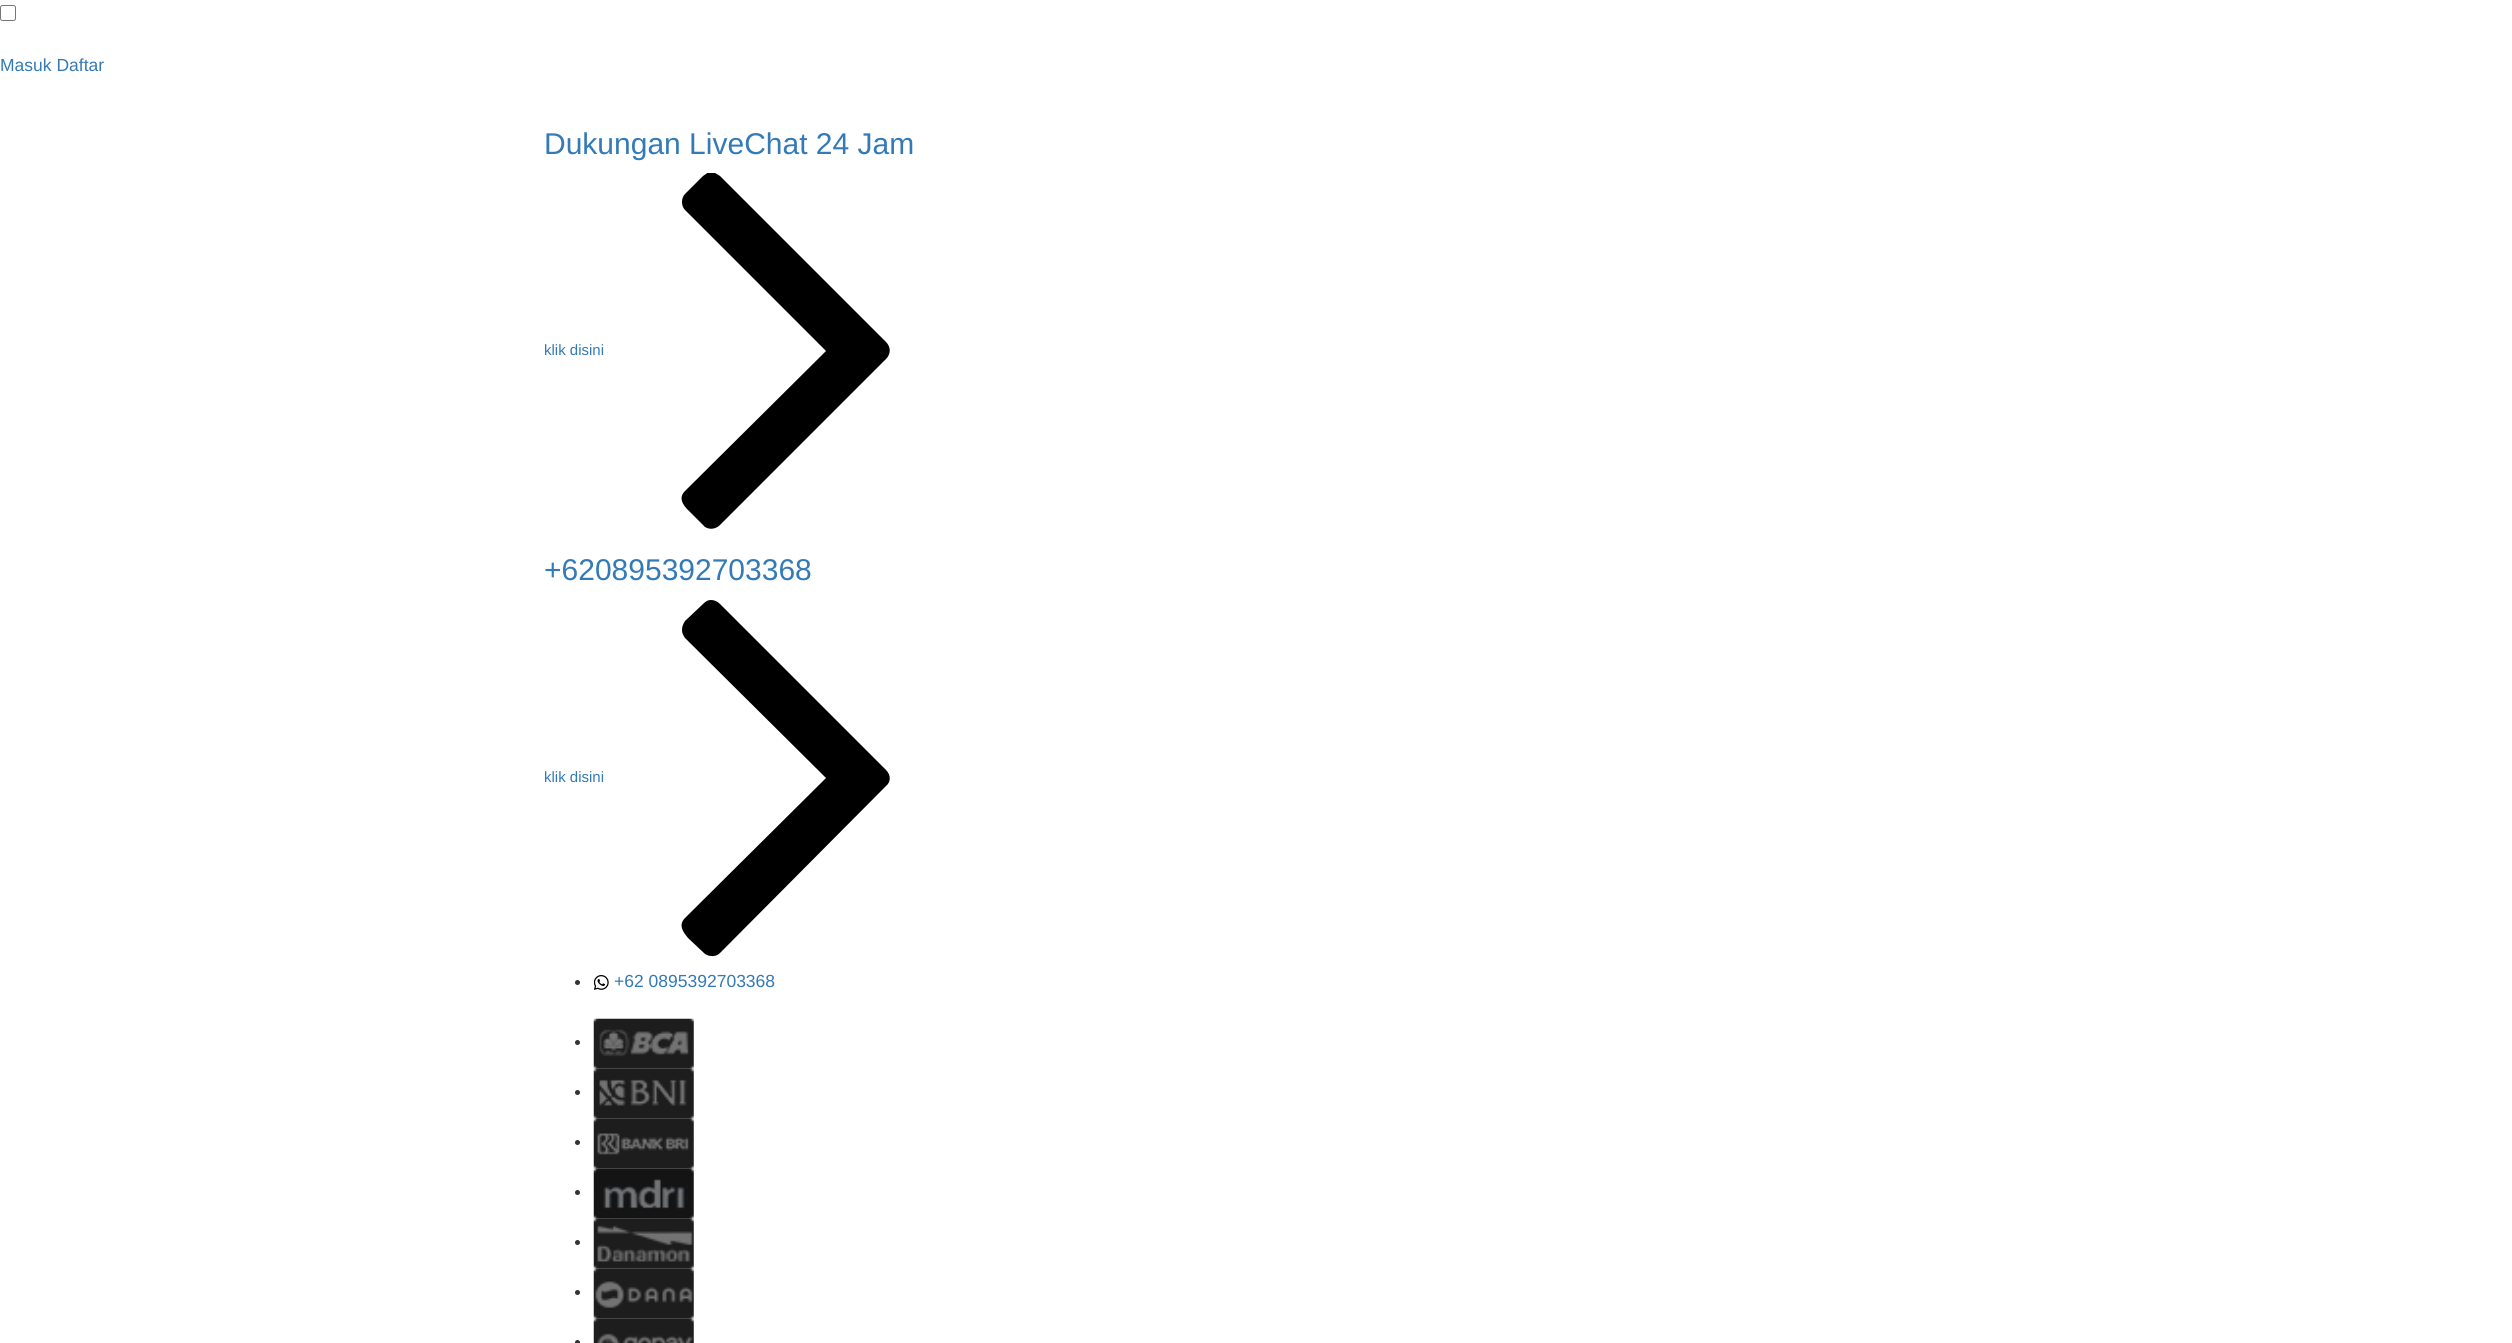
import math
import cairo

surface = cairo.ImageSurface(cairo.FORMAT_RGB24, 2512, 1343)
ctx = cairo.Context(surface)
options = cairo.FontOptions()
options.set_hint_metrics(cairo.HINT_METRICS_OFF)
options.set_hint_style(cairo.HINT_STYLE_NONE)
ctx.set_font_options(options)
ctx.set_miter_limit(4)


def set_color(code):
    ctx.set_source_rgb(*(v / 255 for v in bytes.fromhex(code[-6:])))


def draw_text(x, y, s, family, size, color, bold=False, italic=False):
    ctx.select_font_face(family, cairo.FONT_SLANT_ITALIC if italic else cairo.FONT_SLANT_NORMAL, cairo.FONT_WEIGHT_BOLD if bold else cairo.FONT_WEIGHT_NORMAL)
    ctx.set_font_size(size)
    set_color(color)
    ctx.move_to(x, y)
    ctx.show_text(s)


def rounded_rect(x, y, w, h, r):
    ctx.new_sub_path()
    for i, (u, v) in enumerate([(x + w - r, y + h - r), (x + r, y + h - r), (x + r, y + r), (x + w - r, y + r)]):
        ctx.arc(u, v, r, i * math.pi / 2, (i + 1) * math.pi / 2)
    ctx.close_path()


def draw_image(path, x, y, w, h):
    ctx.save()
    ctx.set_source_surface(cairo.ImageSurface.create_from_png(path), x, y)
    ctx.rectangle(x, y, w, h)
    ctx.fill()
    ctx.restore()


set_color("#ffffff")
ctx.paint()
rounded_rect(0.5, 5.5, 15, 15, 2)
set_color("#767676")
ctx.set_line_width(1)
ctx.stroke()
draw_text(0, 71, "Masuk Daftar", "Liberation Sans", 17.5, "#337ab7")
draw_text(544, 154, "Dukungan LiveChat 24 Jam", "Liberation Sans", 30, "#337ab7")
draw_text(544, 355, "klik disini", "Liberation Sans", 15, "#337ab7")
ctx.save()
ctx.rectangle(608, 173, 356, 356)
ctx.clip()
set_color("#000000")
ctx.new_path()
ctx.move_to(886, 342)
ctx.line_to(720, 176)
ctx.curve_to(717, 174, 714, 172, 711, 172)
ctx.curve_to(708, 172, 706, 174, 703, 176)
ctx.line_to(685, 194)
ctx.curve_to(683, 196, 682, 199, 682, 202)
ctx.curve_to(682, 205, 683, 208, 685, 210)
ctx.line_to(826, 351)
ctx.line_to(685, 491)
ctx.curve_to(678, 498, 683, 505, 688, 510)
ctx.line_to(705, 527)
ctx.curve_to(710, 530, 716, 529, 720, 525)
ctx.line_to(886, 359)
ctx.curve_to(891, 354, 891, 347, 886, 342)
ctx.close_path()
ctx.fill()
ctx.restore()
draw_text(544, 580, "+620895392703368", "Liberation Sans", 30, "#337ab7")
draw_text(544, 782, "klik disini", "Liberation Sans", 15, "#337ab7")
set_color("#000000")
ctx.new_path()
ctx.move_to(886, 770)
ctx.line_to(720, 604)
ctx.curve_to(717, 601, 714, 600, 711, 600)
ctx.curve_to(708, 600, 706, 601, 703, 604)
ctx.line_to(685, 621)
ctx.curve_to(683, 624, 682, 627, 682, 630)
ctx.curve_to(682, 633, 683, 635, 685, 638)
ctx.line_to(826, 778)
ctx.line_to(685, 918)
ctx.curve_to(678, 925, 683, 932, 688, 938)
ctx.line_to(705, 954)
ctx.curve_to(710, 957, 716, 957, 720, 953)
ctx.line_to(886, 786)
ctx.curve_to(891, 782, 891, 775, 886, 770)
ctx.close_path()
ctx.fill()
set_color("#333333")
ctx.arc(577.5, 982.5, 2.5, 0, 2 * math.pi)
ctx.fill()
draw_image("assets/img1.png", 594, 975, 15, 15)
draw_text(614, 987, "+62 0895392703368", "Liberation Sans", 17.5, "#337ab7")
set_color("#333333")
ctx.new_path()
ctx.arc(577.5, 1042.5, 2.5, 0, 2 * math.pi)
ctx.fill()
draw_image("assets/img2.png", 593, 1018, 101, 51)
ctx.arc(577.5, 1092.5, 2.5, 0, 2 * math.pi)
ctx.fill()
draw_image("assets/img3.png", 593, 1068, 101, 51)
ctx.arc(577.5, 1142.5, 2.5, 0, 2 * math.pi)
ctx.fill()
draw_image("assets/img4.png", 593, 1118, 101, 51)
ctx.arc(577.5, 1192.5, 2.5, 0, 2 * math.pi)
ctx.fill()
draw_image("assets/img5.png", 593, 1168, 101, 51)
ctx.arc(577.5, 1242.5, 2.5, 0, 2 * math.pi)
ctx.fill()
draw_image("assets/img6.png", 593, 1218, 101, 51)
ctx.arc(577.5, 1292.5, 2.5, 0, 2 * math.pi)
ctx.fill()
draw_image("assets/img7.png", 593, 1268, 101, 51)
ctx.arc(577.5, 1342.5, 2.5, 0, 2 * math.pi)
ctx.fill()
draw_image("assets/img8.png", 593, 1318, 101, 25)
surface.write_to_png("output.png")
